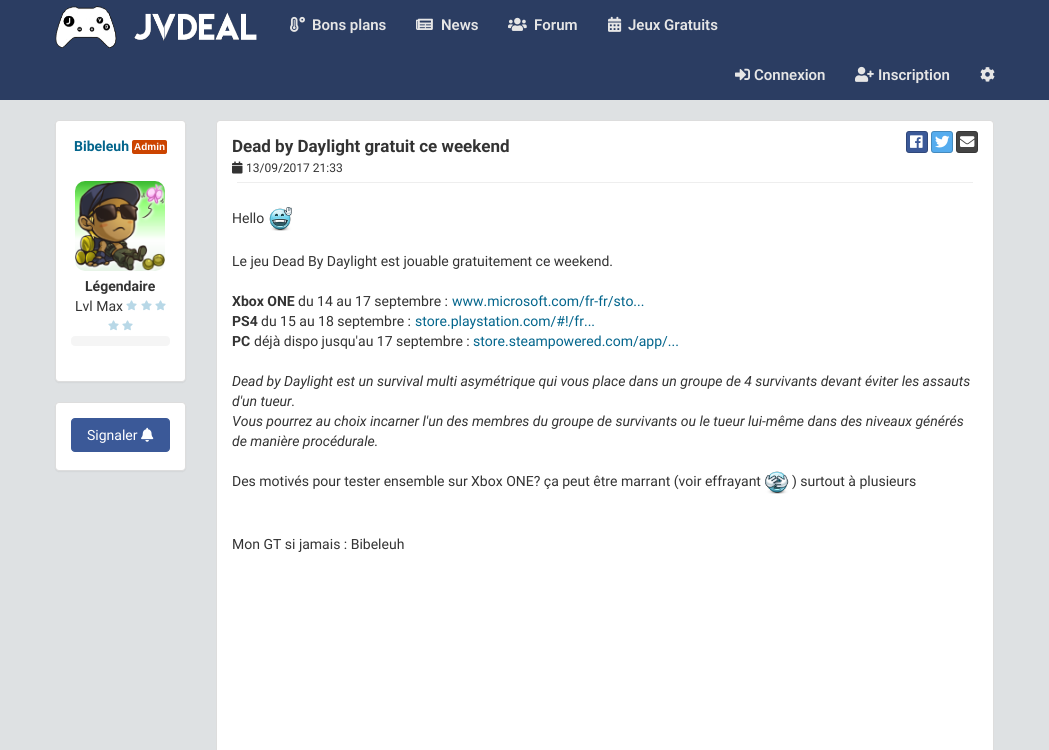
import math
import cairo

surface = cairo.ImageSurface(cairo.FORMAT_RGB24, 1049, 750)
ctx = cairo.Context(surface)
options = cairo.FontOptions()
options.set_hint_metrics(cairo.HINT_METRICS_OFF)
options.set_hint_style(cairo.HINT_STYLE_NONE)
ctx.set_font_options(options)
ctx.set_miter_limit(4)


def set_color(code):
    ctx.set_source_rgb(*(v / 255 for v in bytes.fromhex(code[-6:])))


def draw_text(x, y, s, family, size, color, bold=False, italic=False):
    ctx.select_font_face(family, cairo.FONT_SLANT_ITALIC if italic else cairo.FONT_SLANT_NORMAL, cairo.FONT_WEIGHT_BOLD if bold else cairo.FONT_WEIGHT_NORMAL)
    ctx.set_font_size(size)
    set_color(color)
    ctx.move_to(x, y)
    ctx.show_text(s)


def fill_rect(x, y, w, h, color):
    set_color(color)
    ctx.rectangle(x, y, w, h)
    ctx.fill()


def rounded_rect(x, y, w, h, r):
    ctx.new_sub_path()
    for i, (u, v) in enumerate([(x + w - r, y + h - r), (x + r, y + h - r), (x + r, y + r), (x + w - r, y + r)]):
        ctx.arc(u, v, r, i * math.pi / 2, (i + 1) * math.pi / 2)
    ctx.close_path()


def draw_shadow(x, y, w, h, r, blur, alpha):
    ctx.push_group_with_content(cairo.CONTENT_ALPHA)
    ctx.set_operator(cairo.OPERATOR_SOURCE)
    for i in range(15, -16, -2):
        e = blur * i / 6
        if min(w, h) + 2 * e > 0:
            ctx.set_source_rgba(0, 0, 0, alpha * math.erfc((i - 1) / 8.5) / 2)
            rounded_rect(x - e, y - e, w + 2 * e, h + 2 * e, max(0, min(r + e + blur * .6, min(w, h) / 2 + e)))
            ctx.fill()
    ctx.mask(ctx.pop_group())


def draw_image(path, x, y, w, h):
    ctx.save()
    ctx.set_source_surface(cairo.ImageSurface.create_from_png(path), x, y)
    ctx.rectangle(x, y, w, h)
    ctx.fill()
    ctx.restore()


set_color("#dee1e3")
ctx.paint()
fill_rect(0, 0, 1049, 100, "#2b3d62")
draw_image("assets/img1.png", 55, 6, 202, 42)
draw_image("assets/img2.png", 290, 16, 15, 16)
draw_text(312, 30, "Bons plans", "Roboto SemiBold", 15, "#e6e6e6")
draw_image("assets/img3.png", 416, 18, 17, 12)
draw_text(441, 30, "News", "Roboto SemiBold", 15, "#e6e6e6")
draw_image("assets/img4.png", 508, 17, 19, 14)
draw_text(534, 30, "Forum", "Roboto SemiBold", 15, "#e6e6e6")
draw_image("assets/img5.png", 608, 16, 14, 16)
draw_text(628, 30, "Jeux Gratuits", "Roboto SemiBold", 15, "#e6e6e6")
draw_image("assets/img6.png", 735, 68, 15, 13)
draw_text(754, 80, "Connexion", "Roboto SemiBold", 15, "#e6e6e6")
draw_image("assets/img7.png", 855, 66, 19, 16)
draw_text(878, 80, "Inscription", "Roboto SemiBold", 15, "#e6e6e6")
draw_image("assets/img8.png", 980, 67, 15, 15)
set_color("#000000")
draw_shadow(55, 121, 131, 262, 4, 0.5, 0.05)
set_color("#ffffff")
rounded_rect(55.5, 120.5, 130, 261, 3.5)
ctx.fill_preserve()
set_color("#dddddd")
ctx.set_line_width(1)
ctx.stroke()
draw_text(74, 151, "Bibeleuh", "Roboto", 14, "#03658c", bold=True)
set_color("#cc4400")
rounded_rect(132, 140, 35, 14, 2)
ctx.fill()
draw_text(134, 150, "Admin", "Liberation Sans", 10, "#ffffff", bold=True)
draw_image("assets/img9.png", 75, 181, 90, 90)
draw_text(85, 291, "Légendaire", "Roboto", 14, "#333333", bold=True)
draw_text(75, 311, "Lvl Max", "Roboto", 14, "#333333")
draw_image("assets/img10.png", 126, 300, 11, 11)
draw_image("assets/img10.png", 141, 300, 11, 11)
draw_image("assets/img10.png", 155, 300, 11, 11)
draw_image("assets/img10.png", 108, 320, 11, 11)
draw_image("assets/img10.png", 122, 320, 11, 11)
set_color("#f5f5f5")
rounded_rect(71, 336, 99, 10, 4)
ctx.fill()
set_color("#000000")
draw_shadow(55, 403, 131, 69, 4, 0.5, 0.05)
set_color("#ffffff")
rounded_rect(55.5, 402.5, 130, 68, 3.5)
ctx.fill_preserve()
set_color("#dddddd")
ctx.stroke()
set_color("#3b5998")
rounded_rect(71.5, 418.5, 98, 33, 3.5)
ctx.fill_preserve()
ctx.stroke()
draw_text(87, 440, "Signaler", "Roboto", 14, "#ffffff")
draw_image("assets/img11.png", 141, 427, 13, 15)
rounded_rect(216.5, 120.5, 777, 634, 3.5)
ctx.fill_preserve()
set_color("#dddddd")
ctx.stroke()
draw_text(232, 152, "Dead by Daylight gratuit ce weekend", "Roboto", 17, "#333333", bold=True)
draw_image("assets/img12.png", 232, 161, 11, 13)
draw_text(246, 172, "13/09/2017 21:33", "Roboto", 12, "#333333")
set_color("#3b5998")
rounded_rect(906, 131, 22, 22, 3)
ctx.fill()
rounded_rect(906.5, 131.5, 21, 21, 2.5)
ctx.set_source_rgba(0, 0, 0, 0.2)
ctx.stroke()
draw_image("assets/img13.png", 910, 135, 13, 13)
set_color("#55acee")
rounded_rect(931, 131, 22, 22, 3)
ctx.fill()
rounded_rect(931.5, 131.5, 21, 21, 2.5)
ctx.set_source_rgba(0, 0, 0, 0.2)
ctx.stroke()
draw_image("assets/img14.png", 935, 135, 15, 13)
set_color("#444444")
rounded_rect(956, 131, 22, 22, 3)
ctx.fill()
rounded_rect(956.5, 131.5, 21, 21, 2.5)
ctx.set_source_rgba(0, 0, 0, 0.2)
ctx.stroke()
draw_image("assets/img15.png", 960, 136, 15, 11)
fill_rect(237, 182, 736, 1, "#eeeeee")
draw_text(232, 223, "Hello", "Roboto", 14, "#333333")
draw_image("assets/img16.png", 269, 207, 23, 24)
draw_text(232, 266, "Le jeu Dead By Daylight est jouable gratuitement ce weekend.", "Roboto", 14, "#333333")
draw_text(232, 306, "Xbox ONE", "Roboto", 14, "#333333", bold=True)
draw_text(298, 306, "du 14 au 17 septembre :", "Roboto", 14, "#333333")
draw_text(452, 306, "www.microsoft.com/fr-fr/sto...", "Roboto", 14, "#03658c")
draw_text(232, 326, "PS4", "Roboto", 14, "#333333", bold=True)
draw_text(261, 326, "du 15 au 18 septembre :", "Roboto", 14, "#333333")
draw_text(415, 326, "store.playstation.com/#!/fr...", "Roboto", 14, "#03658c")
draw_text(232, 346, "PC", "Roboto", 14, "#333333", bold=True)
draw_text(254, 346, "déjà dispo jusqu'au 17 septembre :", "Roboto", 14, "#333333")
draw_text(473, 346, "store.steampowered.com/app/...", "Roboto", 14, "#03658c")
draw_text(232, 386, "Dead by Daylight est un survival multi asymétrique qui vous place dans un groupe de 4 survivants devant éviter les assauts", "Roboto", 14, "#333333", italic=True)
draw_text(232, 406, "d'un tueur.", "Roboto", 14, "#333333", italic=True)
draw_text(232, 426, "Vous pourrez au choix incarner l'un des membres du groupe de survivants ou le tueur lui-même dans des niveaux générés", "Roboto", 14, "#333333", italic=True)
draw_text(232, 446, "de manière procédurale.", "Roboto", 14, "#333333", italic=True)
draw_text(232, 486, "Des motivés pour tester ensemble sur Xbox ONE? ça peut être marrant (voir effrayant", "Roboto", 14, "#333333")
draw_image("assets/img17.png", 765, 471, 24, 23)
draw_text(792, 486, ") surtout à plusieurs", "Roboto", 14, "#333333")
draw_text(232, 549, "Mon GT si jamais : Bibeleuh", "Roboto", 14, "#333333")
surface.write_to_png("output.png")
